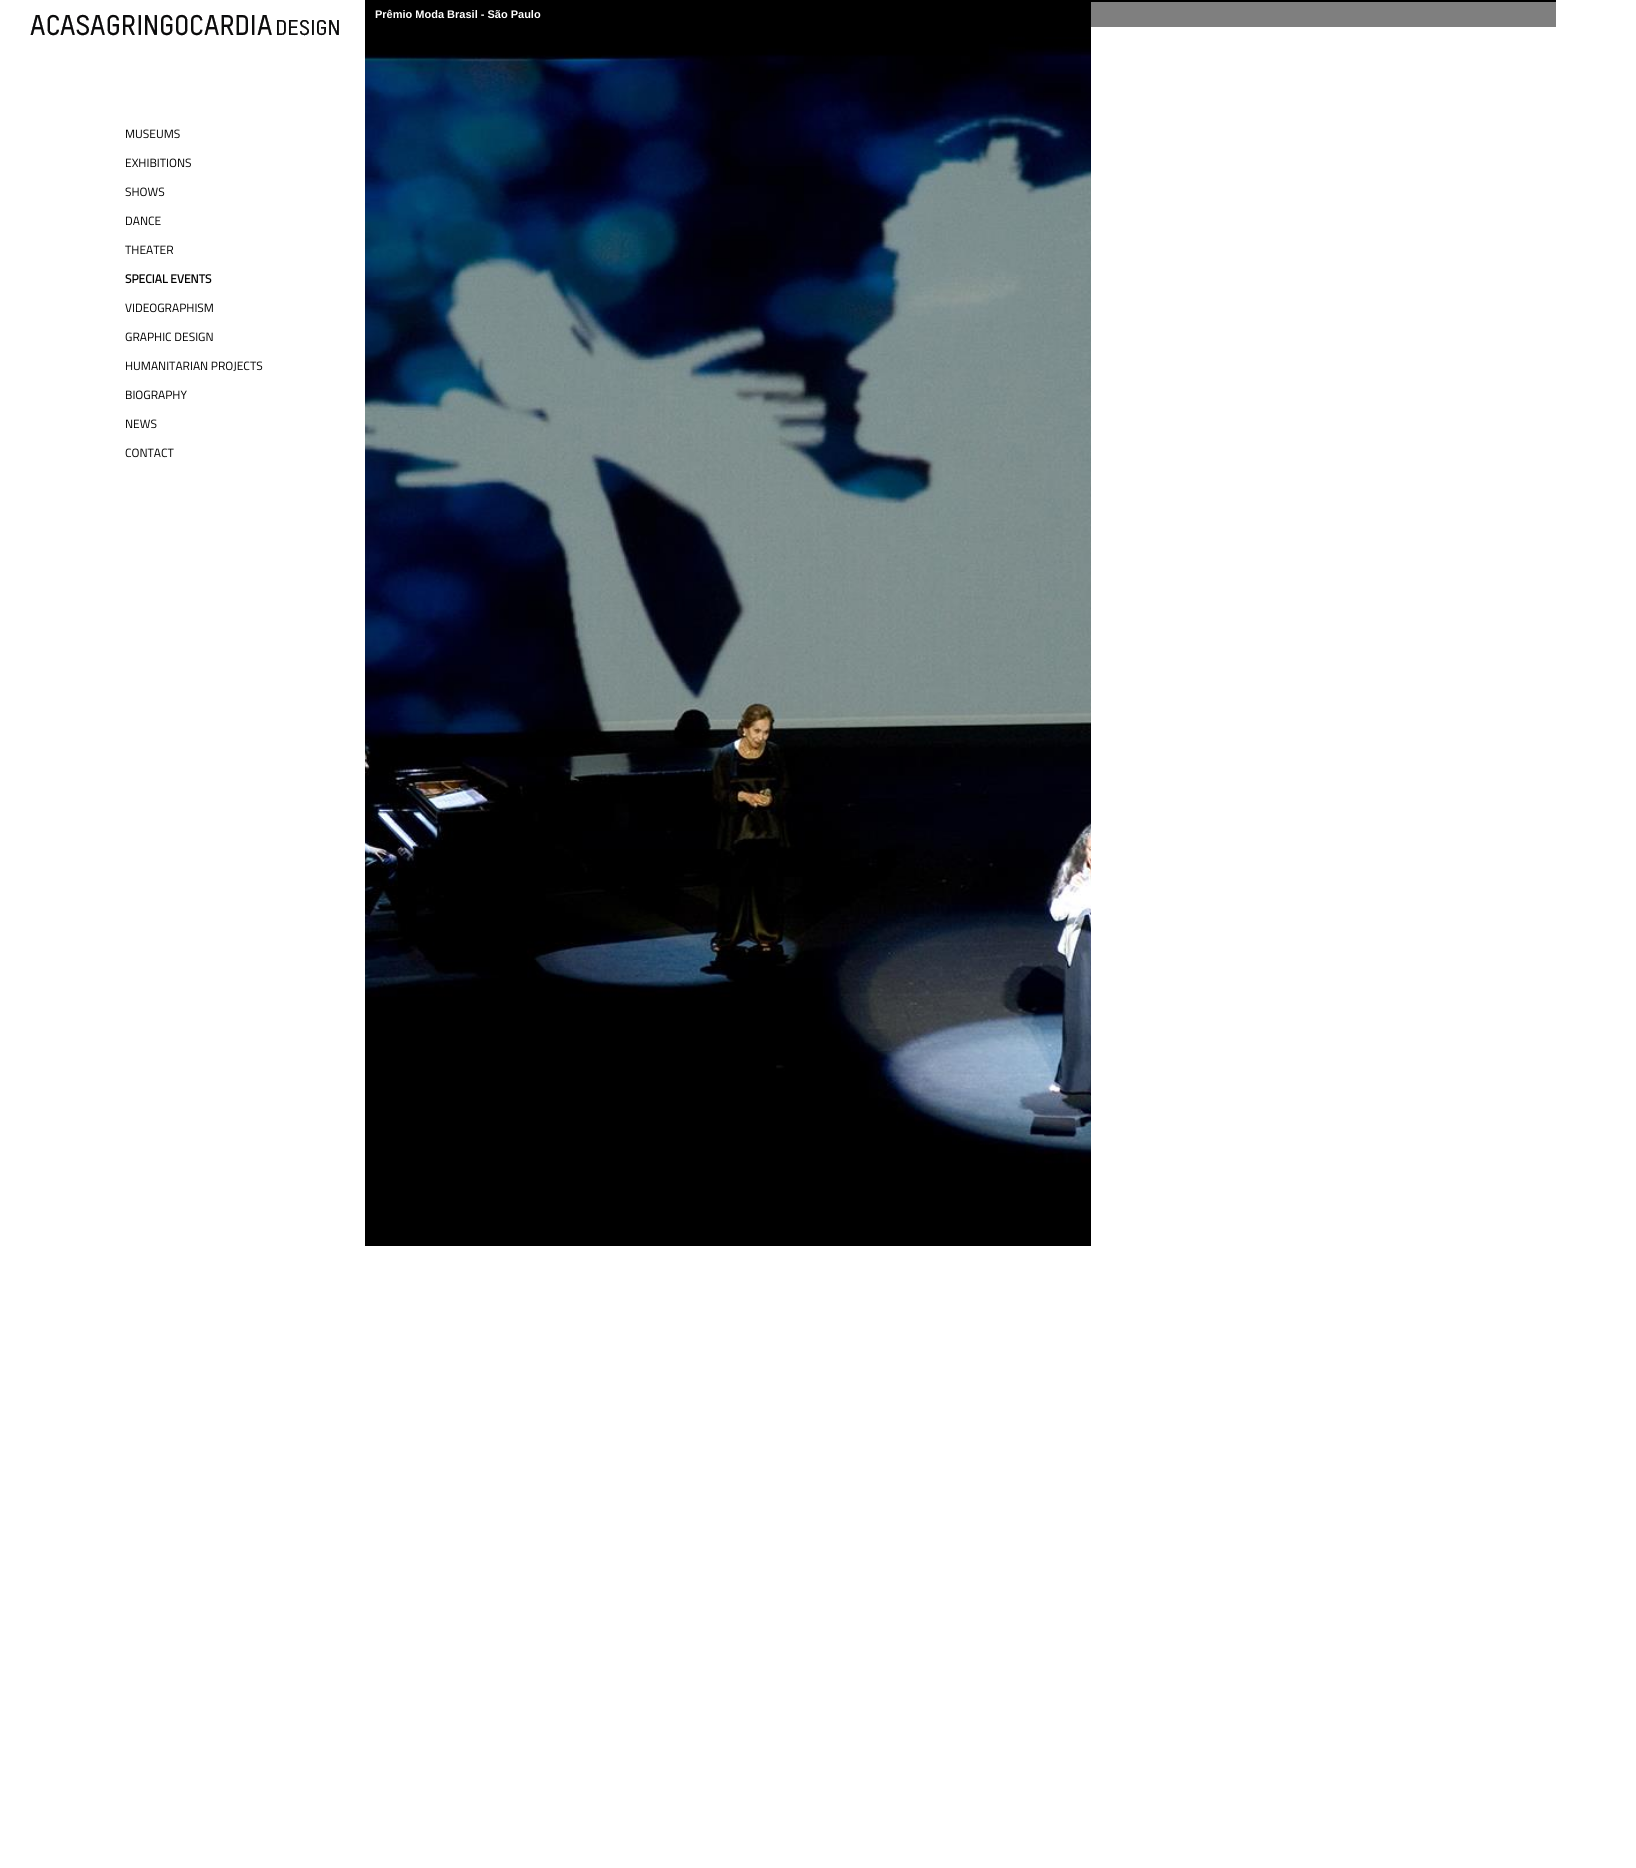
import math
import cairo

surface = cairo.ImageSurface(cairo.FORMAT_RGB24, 1636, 1868)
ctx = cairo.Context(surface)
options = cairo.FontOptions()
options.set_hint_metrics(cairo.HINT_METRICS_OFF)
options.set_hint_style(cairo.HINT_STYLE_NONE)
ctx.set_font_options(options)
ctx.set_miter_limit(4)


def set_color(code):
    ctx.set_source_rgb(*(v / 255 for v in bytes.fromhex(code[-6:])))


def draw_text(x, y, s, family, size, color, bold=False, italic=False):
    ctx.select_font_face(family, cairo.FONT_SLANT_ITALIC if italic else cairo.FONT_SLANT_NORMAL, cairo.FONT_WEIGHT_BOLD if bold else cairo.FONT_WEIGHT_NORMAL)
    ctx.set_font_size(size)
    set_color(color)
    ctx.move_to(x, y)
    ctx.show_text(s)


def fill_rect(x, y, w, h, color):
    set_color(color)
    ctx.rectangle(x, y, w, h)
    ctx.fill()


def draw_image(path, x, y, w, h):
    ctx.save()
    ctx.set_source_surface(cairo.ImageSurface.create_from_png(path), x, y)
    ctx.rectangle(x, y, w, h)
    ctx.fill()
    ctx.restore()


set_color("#ffffff")
ctx.paint()
draw_image("assets/img1.png", 365, 2, 726, 1244)
ctx.set_source_rgba(0, 0, 0, 0.5)
ctx.rectangle(1091, 2, 465, 25)
ctx.fill()
fill_rect(365, 0, 1191, 2, "#000000")
draw_text(375, 18, "Prêmio Moda Brasil - São Paulo", "Liberation Sans", 11, "#ffffff", bold=True)
draw_image("assets/img2.png", 30, 14, 309, 22)
draw_text(125, 138, "MUSEUMS", "Titillium Web", 12, "#000000")
draw_text(125, 167, "EXHIBITIONS", "Titillium Web", 12, "#000000")
draw_text(125, 196, "SHOWS", "Titillium Web", 12, "#000000")
draw_text(125, 225, "DANCE", "Titillium Web", 12, "#000000")
draw_text(125, 254, "THEATER", "Titillium Web", 12, "#000000")
draw_text(125, 283, "SPECIAL EVENTS", "Titillium Web", 12, "#000000", bold=True)
draw_text(125, 312, "VIDEOGRAPHISM", "Titillium Web", 12, "#000000")
draw_text(125, 341, "GRAPHIC DESIGN", "Titillium Web", 12, "#000000")
draw_text(125, 370, "HUMANITARIAN PROJECTS", "Titillium Web", 12, "#000000")
draw_text(125, 399, "BIOGRAPHY", "Titillium Web", 12, "#000000")
draw_text(125, 428, "NEWS", "Titillium Web", 12, "#000000")
draw_text(125, 457, "CONTACT", "Titillium Web", 12, "#000000")
surface.write_to_png("output.png")
